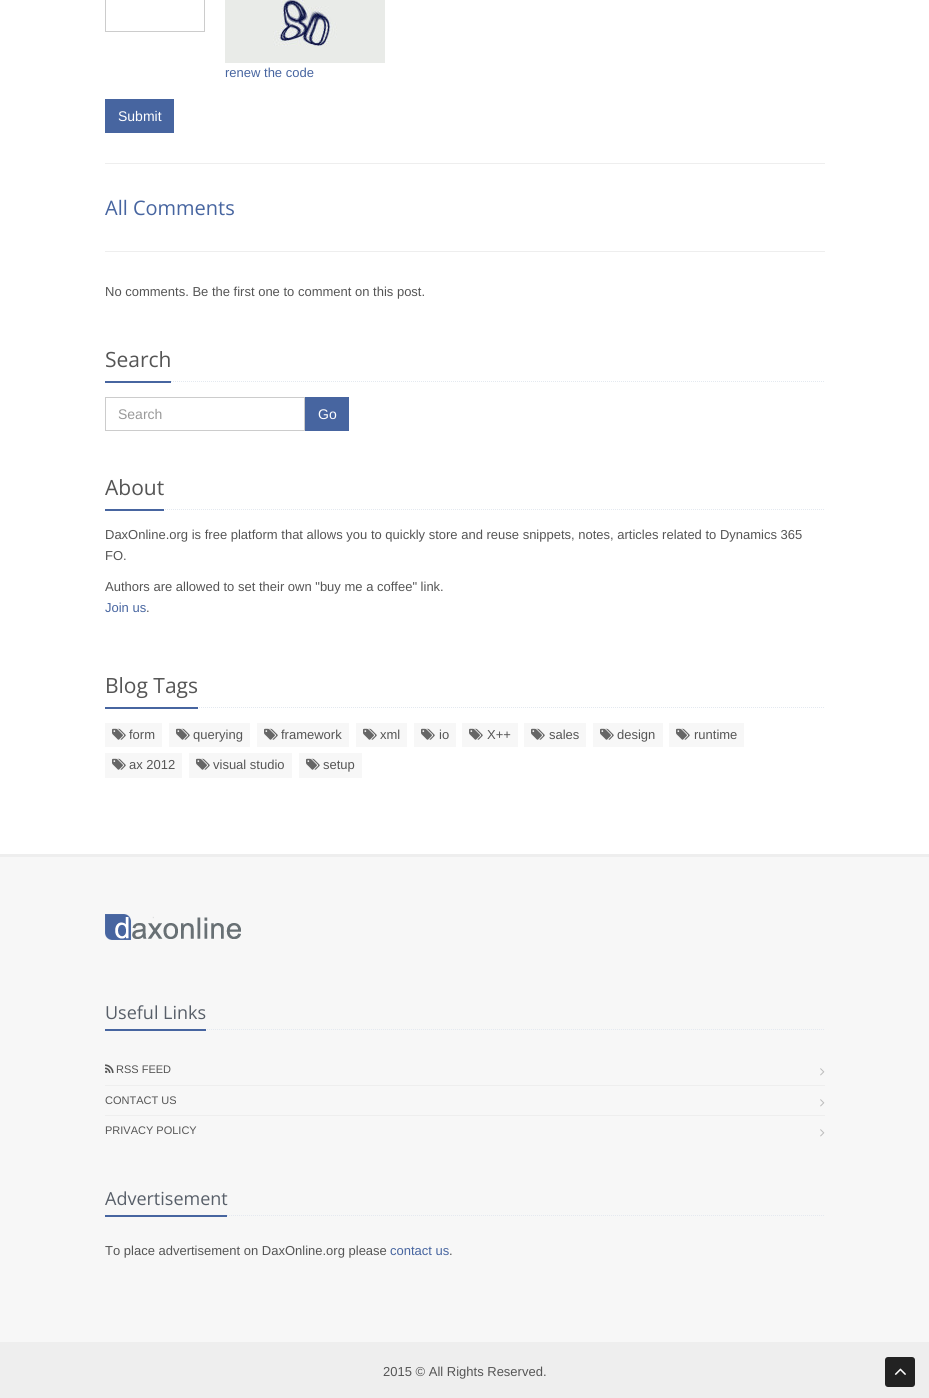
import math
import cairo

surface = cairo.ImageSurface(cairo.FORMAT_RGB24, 929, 1398)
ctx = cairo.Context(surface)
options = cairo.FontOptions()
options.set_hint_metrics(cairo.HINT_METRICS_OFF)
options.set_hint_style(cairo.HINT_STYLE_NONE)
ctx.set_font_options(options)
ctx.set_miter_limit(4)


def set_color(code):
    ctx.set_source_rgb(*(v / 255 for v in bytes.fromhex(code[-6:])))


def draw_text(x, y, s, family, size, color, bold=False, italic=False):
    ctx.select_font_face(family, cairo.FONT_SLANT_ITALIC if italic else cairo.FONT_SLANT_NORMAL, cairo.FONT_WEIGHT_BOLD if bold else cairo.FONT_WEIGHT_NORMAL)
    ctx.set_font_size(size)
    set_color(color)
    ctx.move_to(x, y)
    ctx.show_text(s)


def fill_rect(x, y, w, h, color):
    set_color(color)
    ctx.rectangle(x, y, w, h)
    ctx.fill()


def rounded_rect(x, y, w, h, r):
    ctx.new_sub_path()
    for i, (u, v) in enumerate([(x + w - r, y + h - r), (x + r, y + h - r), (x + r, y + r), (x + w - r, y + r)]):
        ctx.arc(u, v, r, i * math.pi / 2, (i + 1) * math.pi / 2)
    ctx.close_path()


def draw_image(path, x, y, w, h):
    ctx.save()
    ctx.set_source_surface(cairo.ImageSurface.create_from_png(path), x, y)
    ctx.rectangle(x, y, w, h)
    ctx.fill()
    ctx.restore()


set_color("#ffffff")
ctx.paint()
ctx.rectangle(105.5, -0.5, 99, 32)
set_color("#cccccc")
ctx.set_line_width(1)
ctx.stroke()
draw_image("assets/img1.png", 225, 0, 160, 63)
draw_text(225, 77, "renew the code", "Liberation Sans", 13, "#4765a0")
fill_rect(105, 99, 69, 34, "#4765a0")
draw_text(118, 121, "Submit", "Liberation Sans", 14, "#ffffff")
fill_rect(105, 163, 720, 1, "#eeeeee")
draw_text(105, 215, "All Comments", "Open Sans", 20, "#4765a0")
fill_rect(105, 251, 720, 1, "#eeeeee")
draw_text(105, 296, "No comments. Be the first one to comment on this post.", "Liberation Sans", 13, "#555555")
ctx.new_path()
ctx.move_to(105, 381.5)
ctx.line_to(825, 381.5)
set_color("#e4e9f0")
ctx.set_dash([1, 1])
ctx.stroke()
fill_rect(105, 381, 66, 2, "#4765a0")
draw_text(105, 367, "Search", "Open Sans", 21, "#555555")
ctx.rectangle(105.5, 397.5, 199, 33)
set_color("#cccccc")
ctx.set_dash([])
ctx.stroke()
draw_text(118, 419, "Search", "Liberation Sans", 14, "#999999")
fill_rect(305, 397, 44, 34, "#4765a0")
draw_text(318, 419, "Go", "Liberation Sans", 14, "#ffffff")
ctx.new_path()
ctx.move_to(105, 509.5)
ctx.line_to(825, 509.5)
set_color("#e4e9f0")
ctx.set_dash([1, 1])
ctx.stroke()
fill_rect(105, 509, 59, 2, "#4765a0")
draw_text(105, 495, "About", "Open Sans", 21, "#555555")
draw_text(105, 539, "DaxOnline.org is free platform that allows you to quickly store and reuse snippets, notes, articles related to Dynamics 365", "Liberation Sans", 13, "#555555")
draw_text(105, 560, "FO.", "Liberation Sans", 13, "#555555")
draw_text(105, 591, "Authors are allowed to set their own \"buy me a coffee\" link.", "Liberation Sans", 13, "#555555")
draw_text(105, 612, "Join us", "Liberation Sans", 13, "#4765a0")
draw_text(146, 612, ".", "Liberation Sans", 13, "#555555")
ctx.new_path()
ctx.move_to(105, 707.5)
ctx.line_to(825, 707.5)
set_color("#e4e9f0")
ctx.stroke()
fill_rect(105, 707, 93, 2, "#4765a0")
draw_text(105, 693, "Blog Tags", "Open Sans", 21, "#555555")
fill_rect(105, 723, 57, 24, "#f7f7f7")
draw_image("assets/img2.png", 112, 728, 14, 12)
draw_text(129, 739, "form", "Liberation Sans", 13, "#555555")
fill_rect(169, 723, 81, 24, "#f7f7f7")
draw_image("assets/img2.png", 176, 728, 14, 12)
draw_text(193, 739, "querying", "Liberation Sans", 13, "#555555")
fill_rect(257, 723, 92, 24, "#f7f7f7")
draw_image("assets/img2.png", 264, 728, 14, 12)
draw_text(281, 739, "framework", "Liberation Sans", 13, "#555555")
fill_rect(356, 723, 51, 24, "#f7f7f7")
draw_image("assets/img2.png", 363, 728, 14, 12)
draw_text(380, 739, "xml", "Liberation Sans", 13, "#555555")
fill_rect(414, 723, 42, 24, "#f7f7f7")
draw_image("assets/img2.png", 421, 728, 14, 12)
draw_text(439, 739, "io", "Liberation Sans", 13, "#555555")
fill_rect(462, 723, 56, 24, "#f7f7f7")
draw_image("assets/img2.png", 469, 728, 14, 12)
draw_text(487, 739, "X++", "Liberation Sans", 13, "#555555")
fill_rect(524, 723, 62, 24, "#f7f7f7")
draw_image("assets/img2.png", 531, 728, 14, 12)
draw_text(549, 739, "sales", "Liberation Sans", 13, "#555555")
fill_rect(593, 723, 70, 24, "#f7f7f7")
draw_image("assets/img2.png", 600, 728, 14, 12)
draw_text(617, 739, "design", "Liberation Sans", 13, "#555555")
fill_rect(669, 723, 75, 24, "#f7f7f7")
draw_image("assets/img2.png", 676, 728, 14, 12)
draw_text(694, 739, "runtime", "Liberation Sans", 13, "#555555")
fill_rect(105, 753, 77, 25, "#f7f7f7")
draw_image("assets/img2.png", 112, 758, 14, 12)
draw_text(129, 769, "ax 2012", "Liberation Sans", 13, "#555555")
fill_rect(189, 753, 103, 25, "#f7f7f7")
draw_image("assets/img2.png", 196, 758, 14, 12)
draw_text(213, 769, "visual studio", "Liberation Sans", 13, "#555555")
fill_rect(299, 753, 63, 25, "#f7f7f7")
draw_image("assets/img2.png", 306, 758, 14, 12)
draw_text(323, 769, "setup", "Liberation Sans", 13, "#555555")
fill_rect(0, 857, 929, 485, "#f7f7f7")
fill_rect(0, 854, 929, 3, "#eeeeee")
draw_image("assets/img3.png", 105, 914, 136, 26)
ctx.new_path()
ctx.move_to(105, 1029.5)
ctx.line_to(825, 1029.5)
set_color("#e4e9f0")
ctx.stroke()
fill_rect(105, 1029, 101, 2, "#4765a0")
draw_text(105, 1019, "Useful Links", "Open Sans", 18, "#585f69")
draw_image("assets/img4.png", 105, 1064, 9, 9)
draw_text(116, 1073, "RSS FEED", "Liberation Sans", 11, "#555555")
draw_image("assets/img5.png", 820, 1068, 5, 8)
fill_rect(105, 1085, 720, 1, "#eeeeee")
draw_text(105, 1104, "CONTACT US", "Liberation Sans", 11, "#555555")
draw_image("assets/img5.png", 820, 1099, 5, 8)
fill_rect(105, 1115, 720, 1, "#eeeeee")
draw_text(105, 1134, "PRIVACY POLICY", "Liberation Sans", 11, "#555555")
draw_image("assets/img5.png", 820, 1129, 5, 8)
ctx.new_path()
ctx.move_to(105, 1215.5)
ctx.line_to(825, 1215.5)
set_color("#e4e9f0")
ctx.stroke()
fill_rect(105, 1215, 122, 2, "#4765a0")
draw_text(105, 1205, "Advertisement", "Open Sans", 18, "#585f69")
draw_text(105, 1255, "To place advertisement on DaxOnline.org please", "Liberation Sans", 13, "#555555")
draw_text(390, 1255, "contact us", "Liberation Sans", 13, "#4765a0")
draw_text(449, 1255, ".", "Liberation Sans", 13, "#555555")
fill_rect(0, 1342, 929, 56, "#eeeeee")
draw_text(383, 1376, "2015 © All Rights Reserved.", "Liberation Sans", 13, "#555555")
set_color("#222222")
rounded_rect(885, 1357, 30, 30, 3)
ctx.fill()
draw_image("assets/img6.png", 894, 1368, 12, 7)
surface.write_to_png("output.png")
